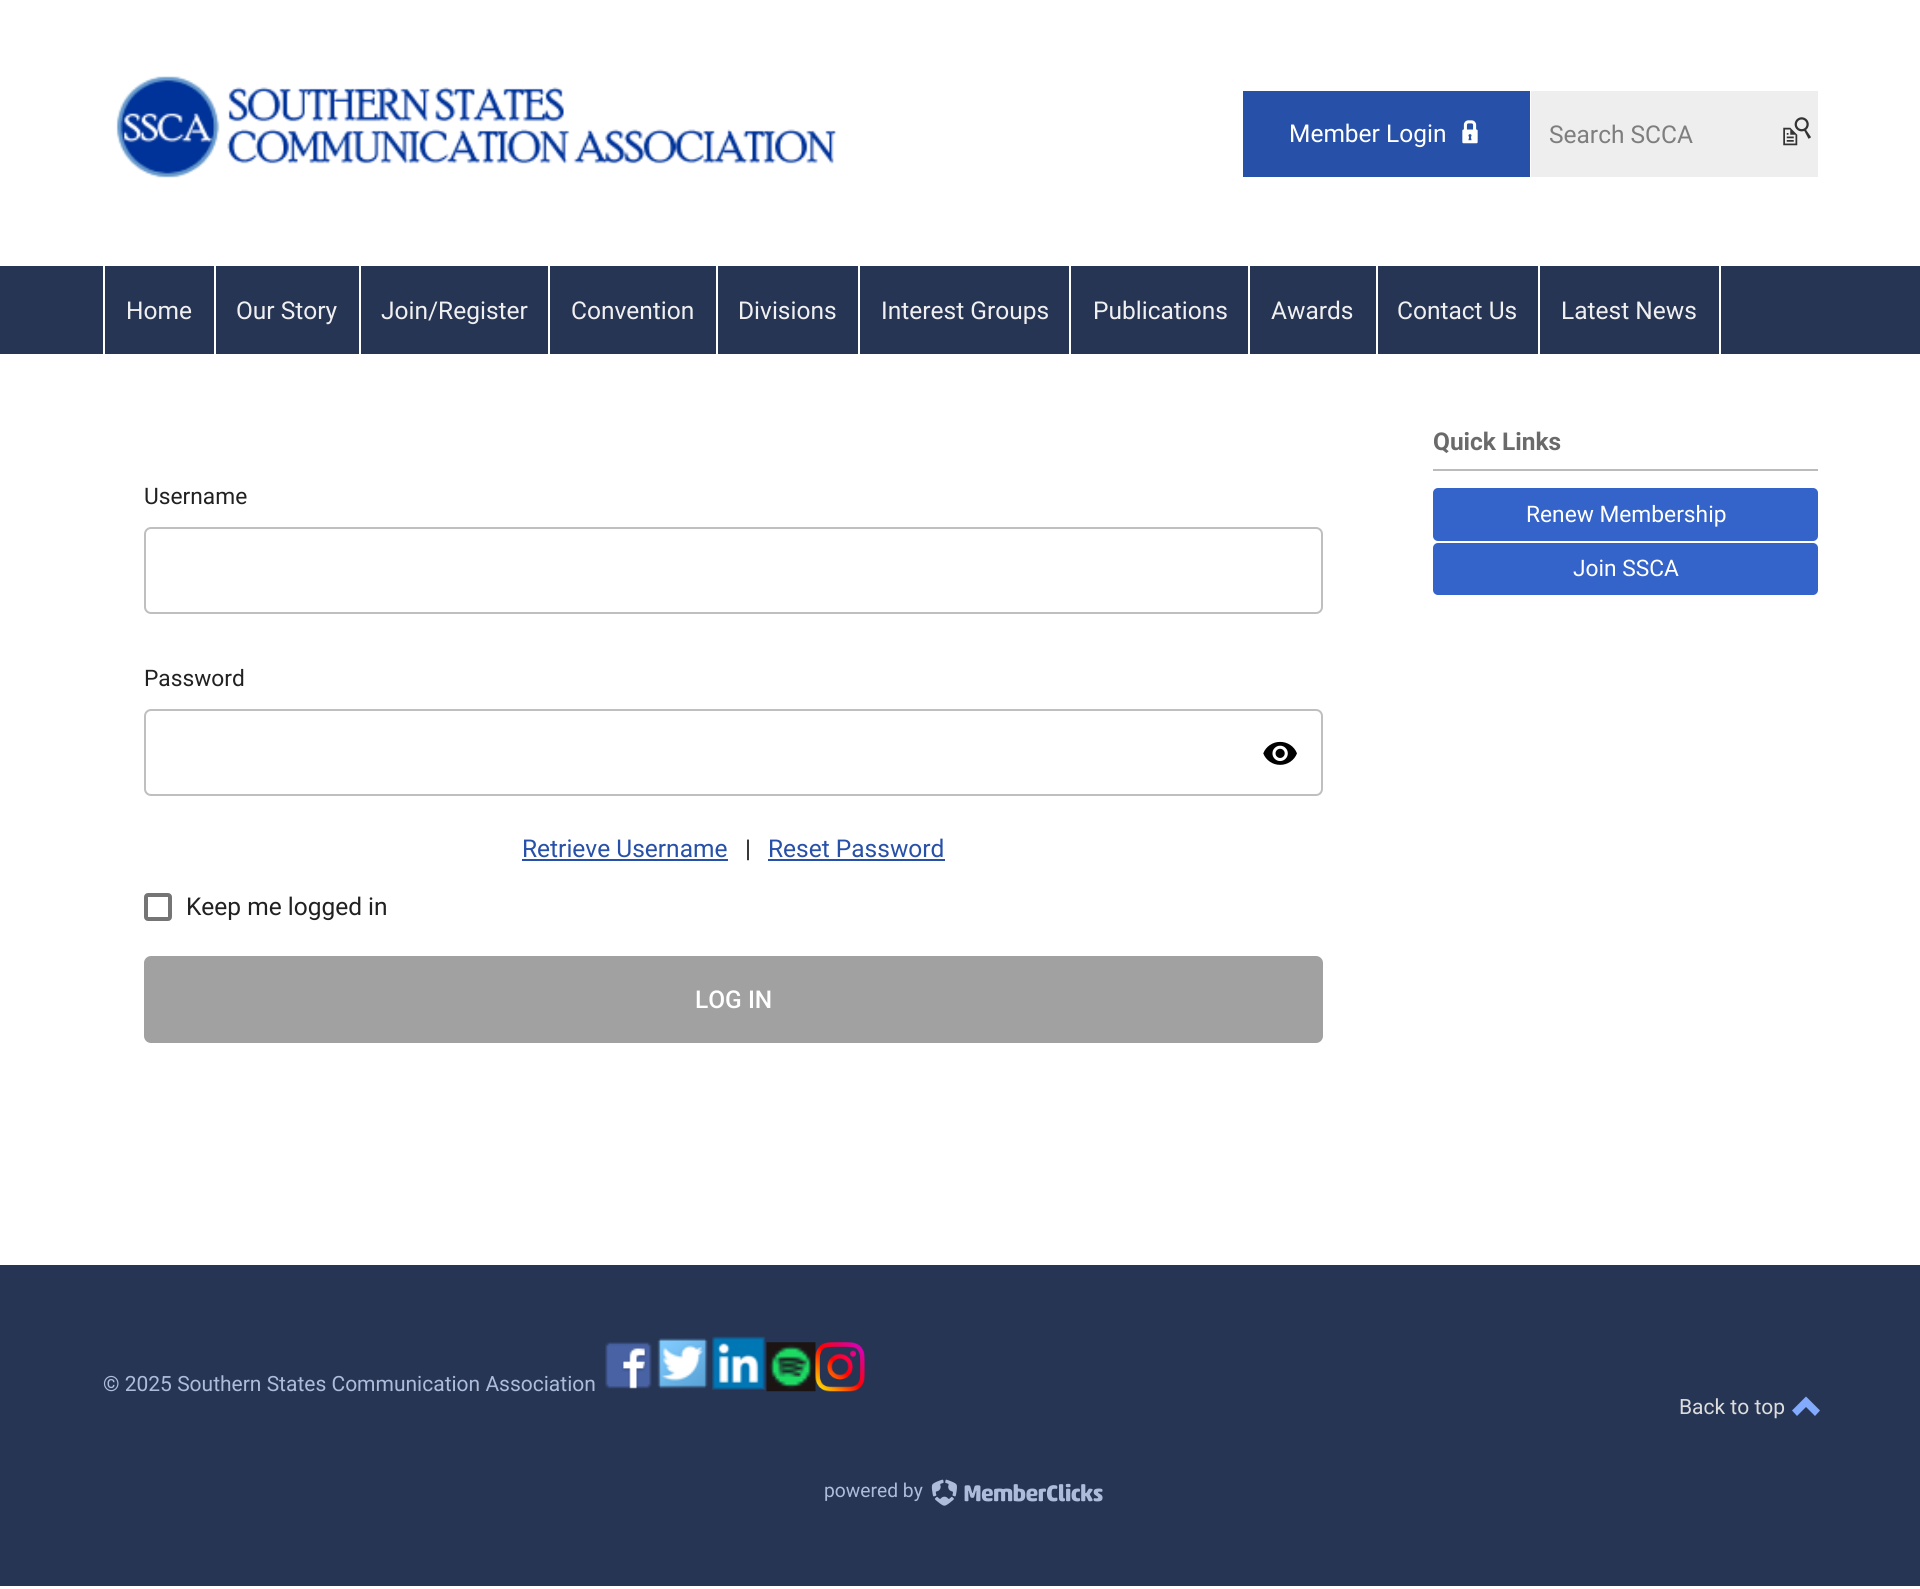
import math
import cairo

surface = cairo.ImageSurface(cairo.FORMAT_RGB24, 1920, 1589)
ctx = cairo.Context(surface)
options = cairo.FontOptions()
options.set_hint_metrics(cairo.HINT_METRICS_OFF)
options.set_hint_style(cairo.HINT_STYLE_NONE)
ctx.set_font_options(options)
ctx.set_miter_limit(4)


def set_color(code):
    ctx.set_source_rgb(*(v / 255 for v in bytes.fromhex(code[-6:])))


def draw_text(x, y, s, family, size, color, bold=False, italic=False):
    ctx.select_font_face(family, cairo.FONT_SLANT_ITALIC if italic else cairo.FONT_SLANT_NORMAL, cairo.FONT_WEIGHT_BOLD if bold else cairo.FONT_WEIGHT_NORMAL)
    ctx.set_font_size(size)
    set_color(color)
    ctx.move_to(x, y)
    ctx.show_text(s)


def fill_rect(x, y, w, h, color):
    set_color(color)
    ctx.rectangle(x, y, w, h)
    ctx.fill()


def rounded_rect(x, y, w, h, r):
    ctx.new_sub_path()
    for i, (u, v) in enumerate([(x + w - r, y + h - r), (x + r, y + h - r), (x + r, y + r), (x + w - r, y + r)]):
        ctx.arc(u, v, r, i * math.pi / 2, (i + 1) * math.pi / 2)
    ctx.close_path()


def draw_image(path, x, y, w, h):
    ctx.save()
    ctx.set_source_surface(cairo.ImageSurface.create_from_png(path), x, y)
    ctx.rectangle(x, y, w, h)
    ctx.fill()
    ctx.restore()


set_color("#ffffff")
ctx.paint()
draw_image("assets/img1.png", 116, 76, 721, 102)
fill_rect(1243, 91, 287, 86, "#2750a9")
draw_text(1289, 142, "Member Login", "Roboto", 24.5, "#ffffff")
draw_image("assets/img2.png", 1462, 120, 16, 24)
fill_rect(1531, 91, 287, 86, "#eeeeee")
draw_text(1549, 143, "Search SCCA", "Roboto", 24.5, "#7e7e7e")
draw_image("assets/img3.png", 1783, 117, 28, 29)
fill_rect(0, 266, 1920, 88, "#273554")
fill_rect(103, 266, 2, 88, "#ffffff")
fill_rect(214, 266, 2, 88, "#ffffff")
draw_text(126, 319, "Home", "Roboto", 24.5, "#f0f0f0")
fill_rect(359, 266, 2, 88, "#ffffff")
draw_text(236, 319, "Our Story", "Roboto", 24.5, "#f0f0f0")
fill_rect(548, 266, 2, 88, "#ffffff")
draw_text(381, 319, "Join/Register", "Roboto", 24.5, "#f0f0f0")
fill_rect(716, 266, 2, 88, "#ffffff")
draw_text(571, 319, "Convention", "Roboto", 24.5, "#f0f0f0")
fill_rect(858, 266, 2, 88, "#ffffff")
draw_text(738, 319, "Divisions", "Roboto", 24.5, "#f0f0f0")
fill_rect(1069, 266, 2, 88, "#ffffff")
draw_text(881, 319, "Interest Groups", "Roboto", 24.5, "#f0f0f0")
fill_rect(1248, 266, 2, 88, "#ffffff")
draw_text(1093, 319, "Publications", "Roboto", 24.5, "#f0f0f0")
fill_rect(1376, 266, 2, 88, "#ffffff")
draw_text(1271, 319, "Awards", "Roboto", 24.5, "#f0f0f0")
fill_rect(1538, 266, 2, 88, "#ffffff")
draw_text(1397, 319, "Contact Us", "Roboto", 24.5, "#f0f0f0")
fill_rect(1719, 266, 2, 88, "#ffffff")
draw_text(1561, 319, "Latest News", "Roboto", 24.5, "#f0f0f0")
draw_text(144, 504, "Username", "Roboto", 22.75, "#212121")
rounded_rect(145, 528, 1177, 85, 6)
set_color("#bfbfbf")
ctx.stroke()
draw_text(144, 686, "Password", "Roboto", 22.75, "#212121")
rounded_rect(145, 710, 1177, 85, 6)
set_color("#bfbfbf")
ctx.stroke()
draw_image("assets/img4.png", 1263, 741, 34, 24)
draw_text(522, 857, "Retrieve Username", "Roboto", 24.5, "#2750a9")
fill_rect(522, 859, 206, 2, "#2750a9")
draw_text(745, 857, "|", "Roboto", 24.5, "#212121")
draw_text(768, 857, "Reset Password", "Roboto", 24.5, "#2750a9")
fill_rect(768, 859, 177, 2, "#2750a9")
rounded_rect(146, 895, 24, 24, 2)
set_color("#757575")
ctx.set_line_width(4)
ctx.stroke()
draw_text(186, 915, "Keep me logged in", "Roboto", 24.5, "#212121")
set_color("#a1a1a1")
rounded_rect(144, 956, 1179, 87, 7)
ctx.fill()
draw_text(695, 1008, "LOG IN", "Roboto Medium", 24.5, "#ffffff")
fill_rect(1433, 469, 385, 2, "#bbbbbb")
draw_text(1433, 450, "Quick Links", "Roboto", 24.5, "#6a6a6a", bold=True)
set_color("#3464ca")
rounded_rect(1433, 488, 385, 53, 5)
ctx.fill()
draw_text(1526, 522, "Renew Membership", "Roboto", 22.75, "#ffffff")
set_color("#3464ca")
rounded_rect(1433, 543, 385, 52, 5)
ctx.fill()
draw_text(1573, 576, "Join SSCA", "Roboto", 22.75, "#ffffff")
fill_rect(0, 1265, 1920, 321, "#273554")
draw_text(103, 1391, "© 2025 Southern States Communication Association", "Roboto", 21, "#adbcda")
draw_image("assets/img5.png", 605, 1342, 47, 47)
draw_image("assets/img6.png", 657, 1338, 51, 51)
draw_image("assets/img7.png", 712, 1336, 54, 54)
draw_image("assets/img8.png", 766, 1342, 50, 50)
draw_image("assets/img9.png", 815, 1342, 50, 50)
draw_text(1679, 1414, "Back to top", "Roboto", 21, "#dddddd")
set_color("#82aafd")
ctx.new_path()
ctx.move_to(1792, 1410.5)
ctx.line_to(1797, 1416)
ctx.line_to(1806, 1407)
ctx.line_to(1815, 1416)
ctx.line_to(1820, 1410.5)
ctx.line_to(1806, 1396.5)
ctx.close_path()
ctx.fill()
draw_text(824, 1497, "powered by", "Roboto", 19.25, "#adbcda")
draw_image("assets/img10.png", 931, 1479, 26, 27)
draw_image("assets/img11.png", 964, 1483, 139, 19)
surface.write_to_png("output.png")
